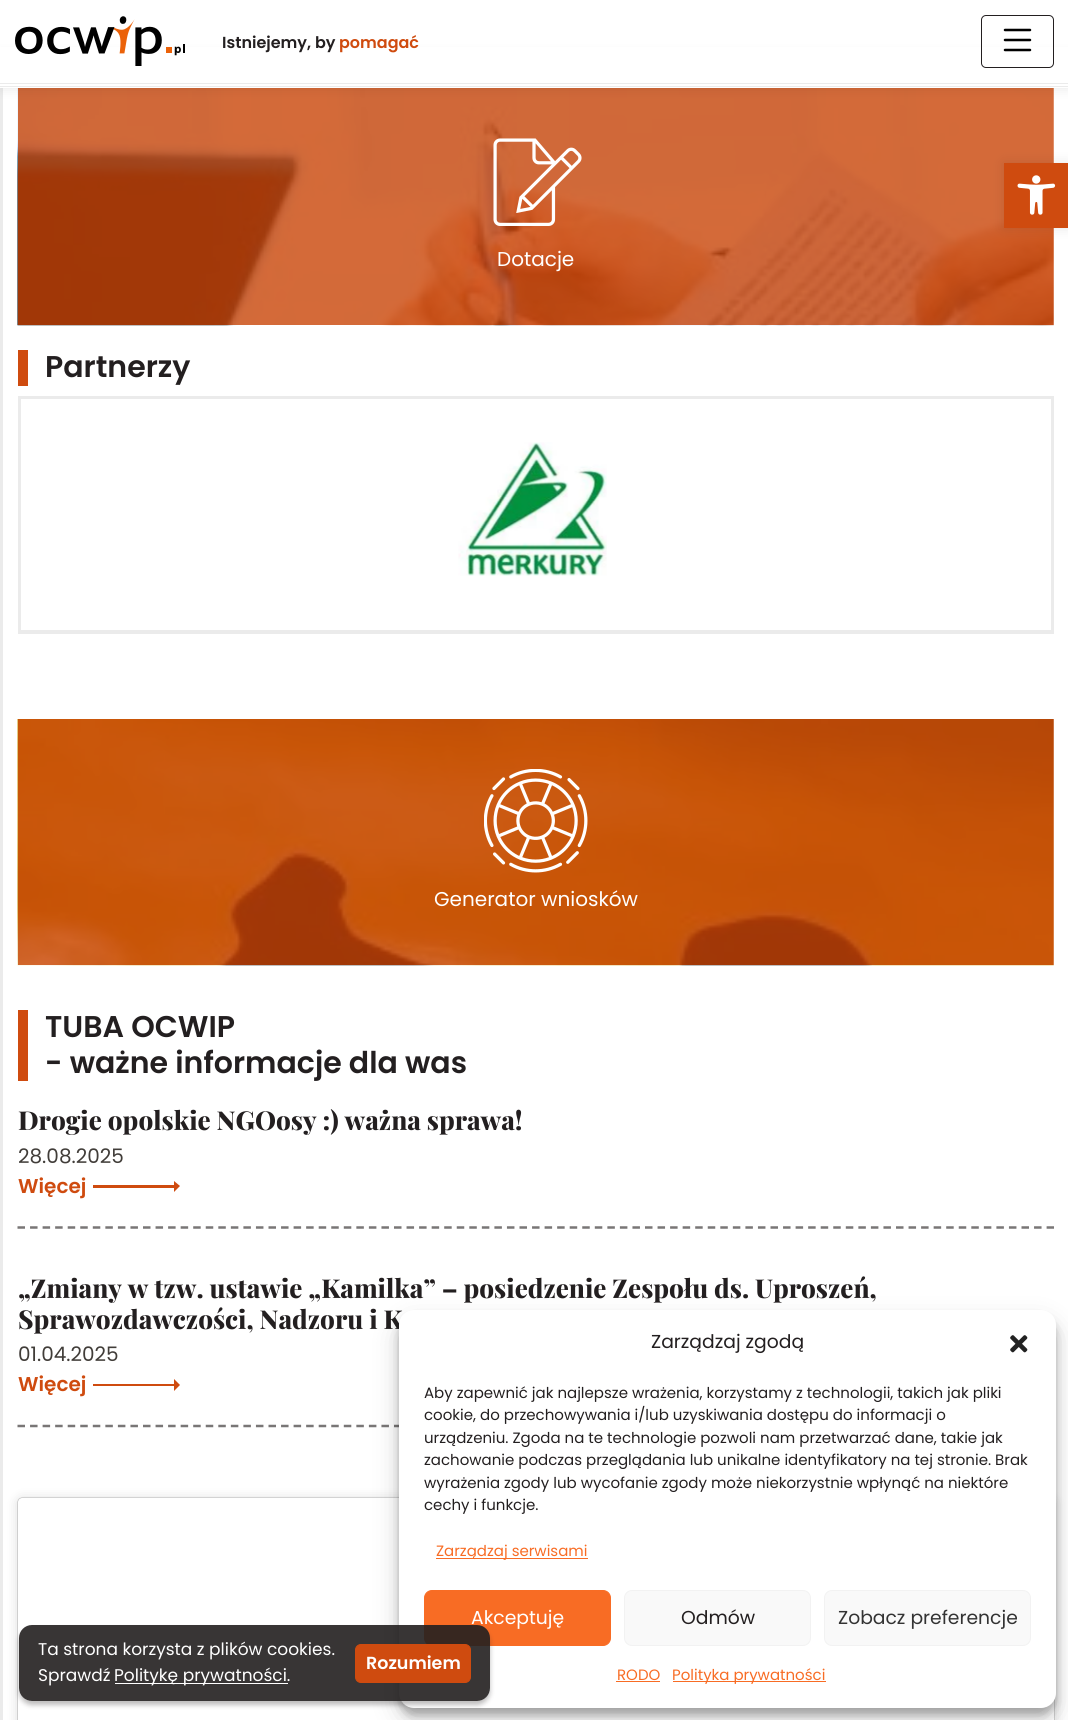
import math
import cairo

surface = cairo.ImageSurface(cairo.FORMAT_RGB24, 1068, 1720)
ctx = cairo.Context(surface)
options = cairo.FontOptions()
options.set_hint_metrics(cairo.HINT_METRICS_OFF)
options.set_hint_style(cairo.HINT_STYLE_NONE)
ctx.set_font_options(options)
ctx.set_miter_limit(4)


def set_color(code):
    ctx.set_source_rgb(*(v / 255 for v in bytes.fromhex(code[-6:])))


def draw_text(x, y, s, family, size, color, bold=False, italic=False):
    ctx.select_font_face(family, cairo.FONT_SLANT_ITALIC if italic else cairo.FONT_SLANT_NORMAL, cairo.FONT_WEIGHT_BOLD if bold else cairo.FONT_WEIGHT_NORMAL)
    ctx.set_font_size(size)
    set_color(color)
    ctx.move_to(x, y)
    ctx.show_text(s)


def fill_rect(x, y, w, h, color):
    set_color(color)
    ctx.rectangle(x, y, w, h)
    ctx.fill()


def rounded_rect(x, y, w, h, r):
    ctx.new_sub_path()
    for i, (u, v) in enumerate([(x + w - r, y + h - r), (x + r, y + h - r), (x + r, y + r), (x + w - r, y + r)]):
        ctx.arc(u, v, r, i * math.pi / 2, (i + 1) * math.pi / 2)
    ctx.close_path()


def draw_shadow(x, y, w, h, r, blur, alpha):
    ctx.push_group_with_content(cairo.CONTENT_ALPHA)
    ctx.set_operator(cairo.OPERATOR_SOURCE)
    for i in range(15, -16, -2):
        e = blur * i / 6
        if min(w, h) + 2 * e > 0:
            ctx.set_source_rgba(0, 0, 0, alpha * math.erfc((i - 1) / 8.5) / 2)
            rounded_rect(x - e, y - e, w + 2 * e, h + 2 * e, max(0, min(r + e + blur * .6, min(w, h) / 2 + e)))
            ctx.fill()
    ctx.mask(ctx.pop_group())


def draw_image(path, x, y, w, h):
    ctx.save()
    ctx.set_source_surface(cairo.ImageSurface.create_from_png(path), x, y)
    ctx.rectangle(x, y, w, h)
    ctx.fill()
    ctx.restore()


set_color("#ffffff")
ctx.paint()
fill_rect(0, 88, 3, 1632, "#ebebeb")
draw_image("assets/img3.png", 17, 88, 1037, 238)
set_color("#000000")
draw_shadow(0, 55, 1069, 33, 0, 6, 0.1)
fill_rect(0, 47, 1068, 36, "#ffffff")
fill_rect(0, 83, 1068, 1, "#ebebeb")
draw_image("assets/img1.png", 15, 16, 170, 50)
draw_text(222, 48, "Istniejemy, by", "Poppins SemiBold", 16, "#231f20")
draw_text(339, 48, "pomagać", "Poppins SemiBold", 16, "#cf4b0f")
rounded_rect(981.5, 15.5, 72, 52, 4.5)
set_color("#231f20")
ctx.set_line_width(1)
ctx.stroke()
draw_image("assets/img2.png", 1003, 28, 29, 24)
fill_rect(0, 84, 1068, 4, "#ffffff")
fill_rect(0, 86, 1068, 1, "#ebebeb")
draw_image("assets/img4.png", 493, 138, 89, 88)
draw_text(497, 266, "Dotacje", "Poppins", 20, "#ffffff")
fill_rect(18, 350, 10, 36, "#cf4b0f")
draw_text(45, 377, "Partnerzy", "Poppins SemiBold", 30, "#231f20")
ctx.rectangle(19.5, 397.5, 1033, 260)
set_color("#ebebeb")
ctx.set_line_width(3)
ctx.stroke()
fill_rect(18, 630, 1036, 4, "#ebebeb")
draw_image("assets/img5.png", 458, 442, 149, 134)
fill_rect(18, 634, 1036, 25, "#ffffff")
draw_image("assets/img6.png", 17, 719, 1037, 247)
draw_image("assets/img7.png", 484, 769, 104, 104)
draw_text(434, 906, "Generator wniosków", "Poppins", 20, "#ffffff")
fill_rect(18, 1010, 10, 71, "#cf4b0f")
draw_text(45, 1037, "TUBA OCWIP", "Poppins SemiBold", 30, "#231f20")
draw_text(45, 1073, "- ważne informacje dla was", "Poppins SemiBold", 30, "#231f20")
ctx.new_path()
ctx.move_to(17.5, 1227.5)
ctx.line_to(1054, 1227.5)
set_color("#797676")
ctx.set_line_width(2.5)
ctx.set_dash([7.5, 5.05])
ctx.stroke()
draw_text(18, 1130, "Drogie opolskie NGOosy :) ważna sprawa!", "Playfair Display ExtraBold", 26, "#231f20")
draw_text(18, 1163, "28.08.2025", "Poppins", 20, "#413d39")
draw_text(18, 1193, "Więcej", "Poppins SemiBold", 20, "#cf4b0f")
ctx.set_fill_rule(cairo.FILL_RULE_EVEN_ODD)
ctx.new_path()
ctx.move_to(93, 1188)
ctx.line_to(174, 1188)
ctx.line_to(174, 1192)
ctx.line_to(180, 1186)
ctx.line_to(174, 1181)
ctx.line_to(174, 1185)
ctx.line_to(93, 1185)
ctx.close_path()
ctx.fill()
ctx.new_path()
ctx.move_to(17.5, 1426)
ctx.line_to(1054, 1426)
set_color("#797676")
ctx.stroke()
draw_text(18, 1298, "„Zmiany w tzw. ustawie „Kamilka” – posiedzenie Zespołu ds. Uproszeń,", "Playfair Display ExtraBold", 26, "#231f20")
draw_text(18, 1329, "Sprawozdawczości, Nadzoru i K", "Playfair Display ExtraBold", 26, "#231f20")
draw_text(18, 1361, "01.04.2025", "Poppins", 20, "#413d39")
draw_text(18, 1391, "Więcej", "Poppins SemiBold", 20, "#cf4b0f")
ctx.new_path()
ctx.move_to(93, 1386)
ctx.line_to(174, 1386)
ctx.line_to(174, 1391)
ctx.line_to(180, 1385)
ctx.line_to(174, 1379)
ctx.line_to(174, 1384)
ctx.line_to(93, 1384)
ctx.close_path()
ctx.fill()
set_color("#000000")
draw_shadow(18, 1499, 1036, 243, 4, 6, 0.15)
draw_shadow(18, 1498, 1036, 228, 4, 0.5, 0.5)
set_color("#ffffff")
rounded_rect(18, 1498, 1036, 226, 4)
ctx.fill()
set_color("#000000")
draw_shadow(1004, 163, 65, 65, 0, 6, 0.1)
fill_rect(1004, 163, 64, 65, "#cf4b0f")
draw_image("assets/img8.png", 1017, 175, 39, 40)
set_color("#000000")
draw_shadow(399, 1318, 657, 397, 15, 4, 0.23)
draw_shadow(399, 1323, 657, 397, 15, 12.5, 0.19)
set_color("#ffffff")
rounded_rect(399, 1310, 657, 398, 15)
ctx.fill()
set_color("#f86c24")
rounded_rect(424.5, 1590.5, 186, 55, 7.5)
ctx.fill_preserve()
ctx.set_line_width(1)
ctx.set_dash([])
ctx.stroke()
ctx.save()
ctx.new_path()
ctx.move_to(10, 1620)
ctx.line_to(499, 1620)
ctx.line_to(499, 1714)
ctx.line_to(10, 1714)
ctx.close_path()
ctx.move_to(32, 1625)
ctx.line_to(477, 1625)
ctx.curve_to(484, 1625, 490, 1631, 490, 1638)
ctx.line_to(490, 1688)
ctx.curve_to(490, 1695, 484, 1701, 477, 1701)
ctx.line_to(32, 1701)
ctx.curve_to(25, 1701, 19, 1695, 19, 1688)
ctx.line_to(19, 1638)
ctx.curve_to(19, 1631, 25, 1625, 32, 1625)
ctx.close_path()
ctx.clip()
set_color("#231f20")
draw_shadow(19, 1629, 471, 76, 13, 2.5, 0.3)
ctx.restore()
draw_text(471, 1624, "Akceptuję", "Poppins", 18.75, "#ffffff")
ctx.set_source_rgba(0.137, 0.122, 0.125, 0.9)
rounded_rect(19, 1625, 471, 76, 13)
ctx.fill()
draw_text(38, 1655, "Ta strona korzysta z plików cookies.", "Poppins", 17, "#ffffff")
draw_text(38, 1681, "Sprawdź", "Poppins", 17, "#ffffff")
fill_rect(115, 1683, 173, 1, "#ffffff")
draw_text(114, 1681, "Politykę prywatności.", "Poppins", 17, "#ffffff")
set_color("#cf4b0f")
rounded_rect(355.5, 1644.5, 115, 38, 5.5)
ctx.fill_preserve()
ctx.stroke()
draw_text(366, 1669, "Rozumiem", "Poppins SemiBold", 17.5, "#ffffff")
draw_text(651, 1348, "Zarządzaj zgodą", "Poppins", 18.75, "#231f20")
draw_image("assets/img9.png", 1010, 1335, 18, 18)
draw_text(424, 1398, "Aby zapewnić jak najlepsze wrażenia, korzystamy z technologii, takich jak pliki", "Poppins", 15, "#231f20")
draw_text(424, 1420, "cookie, do przechowywania i/lub uzyskiwania dostępu do informacji o", "Poppins", 15, "#231f20")
draw_text(424, 1443, "urządzeniu. Zgoda na te technologie pozwoli nam przetwarzać dane, takie jak", "Poppins", 15, "#231f20")
draw_text(424, 1465, "zachowanie podczas przeglądania lub unikalne identyfikatory na tej stronie. Brak", "Poppins", 15, "#231f20")
draw_text(424, 1488, "wyrażenia zgody lub wycofanie zgody może niekorzystnie wpłynąć na niektóre", "Poppins", 15, "#231f20")
draw_text(424, 1510, "cechy i funkcje.", "Poppins", 15, "#231f20")
fill_rect(436, 1558, 152, 1, "#f86c24")
draw_text(436, 1556, "Zarządzaj serwisami", "Poppins", 15, "#f86c24")
set_color("#f9f9f9")
rounded_rect(624.5, 1590.5, 186, 55, 7.5)
ctx.fill_preserve()
set_color("#f2f2f2")
ctx.stroke()
draw_text(681, 1624, "Odmów", "Poppins", 18.75, "#231f20")
set_color("#f9f9f9")
rounded_rect(824.5, 1590.5, 206, 55, 7.5)
ctx.fill_preserve()
set_color("#f2f2f2")
ctx.stroke()
draw_text(838, 1624, "Zobacz preferencje", "Poppins", 18.75, "#333333")
draw_text(617, 1680, "RODO", "Poppins", 15, "#f86c24")
fill_rect(616, 1681, 44, 1, "#f86c24")
fill_rect(673, 1681, 153, 1, "#f86c24")
draw_text(672, 1680, "Polityka prywatności", "Poppins", 15, "#f86c24")
surface.write_to_png("output.png")
